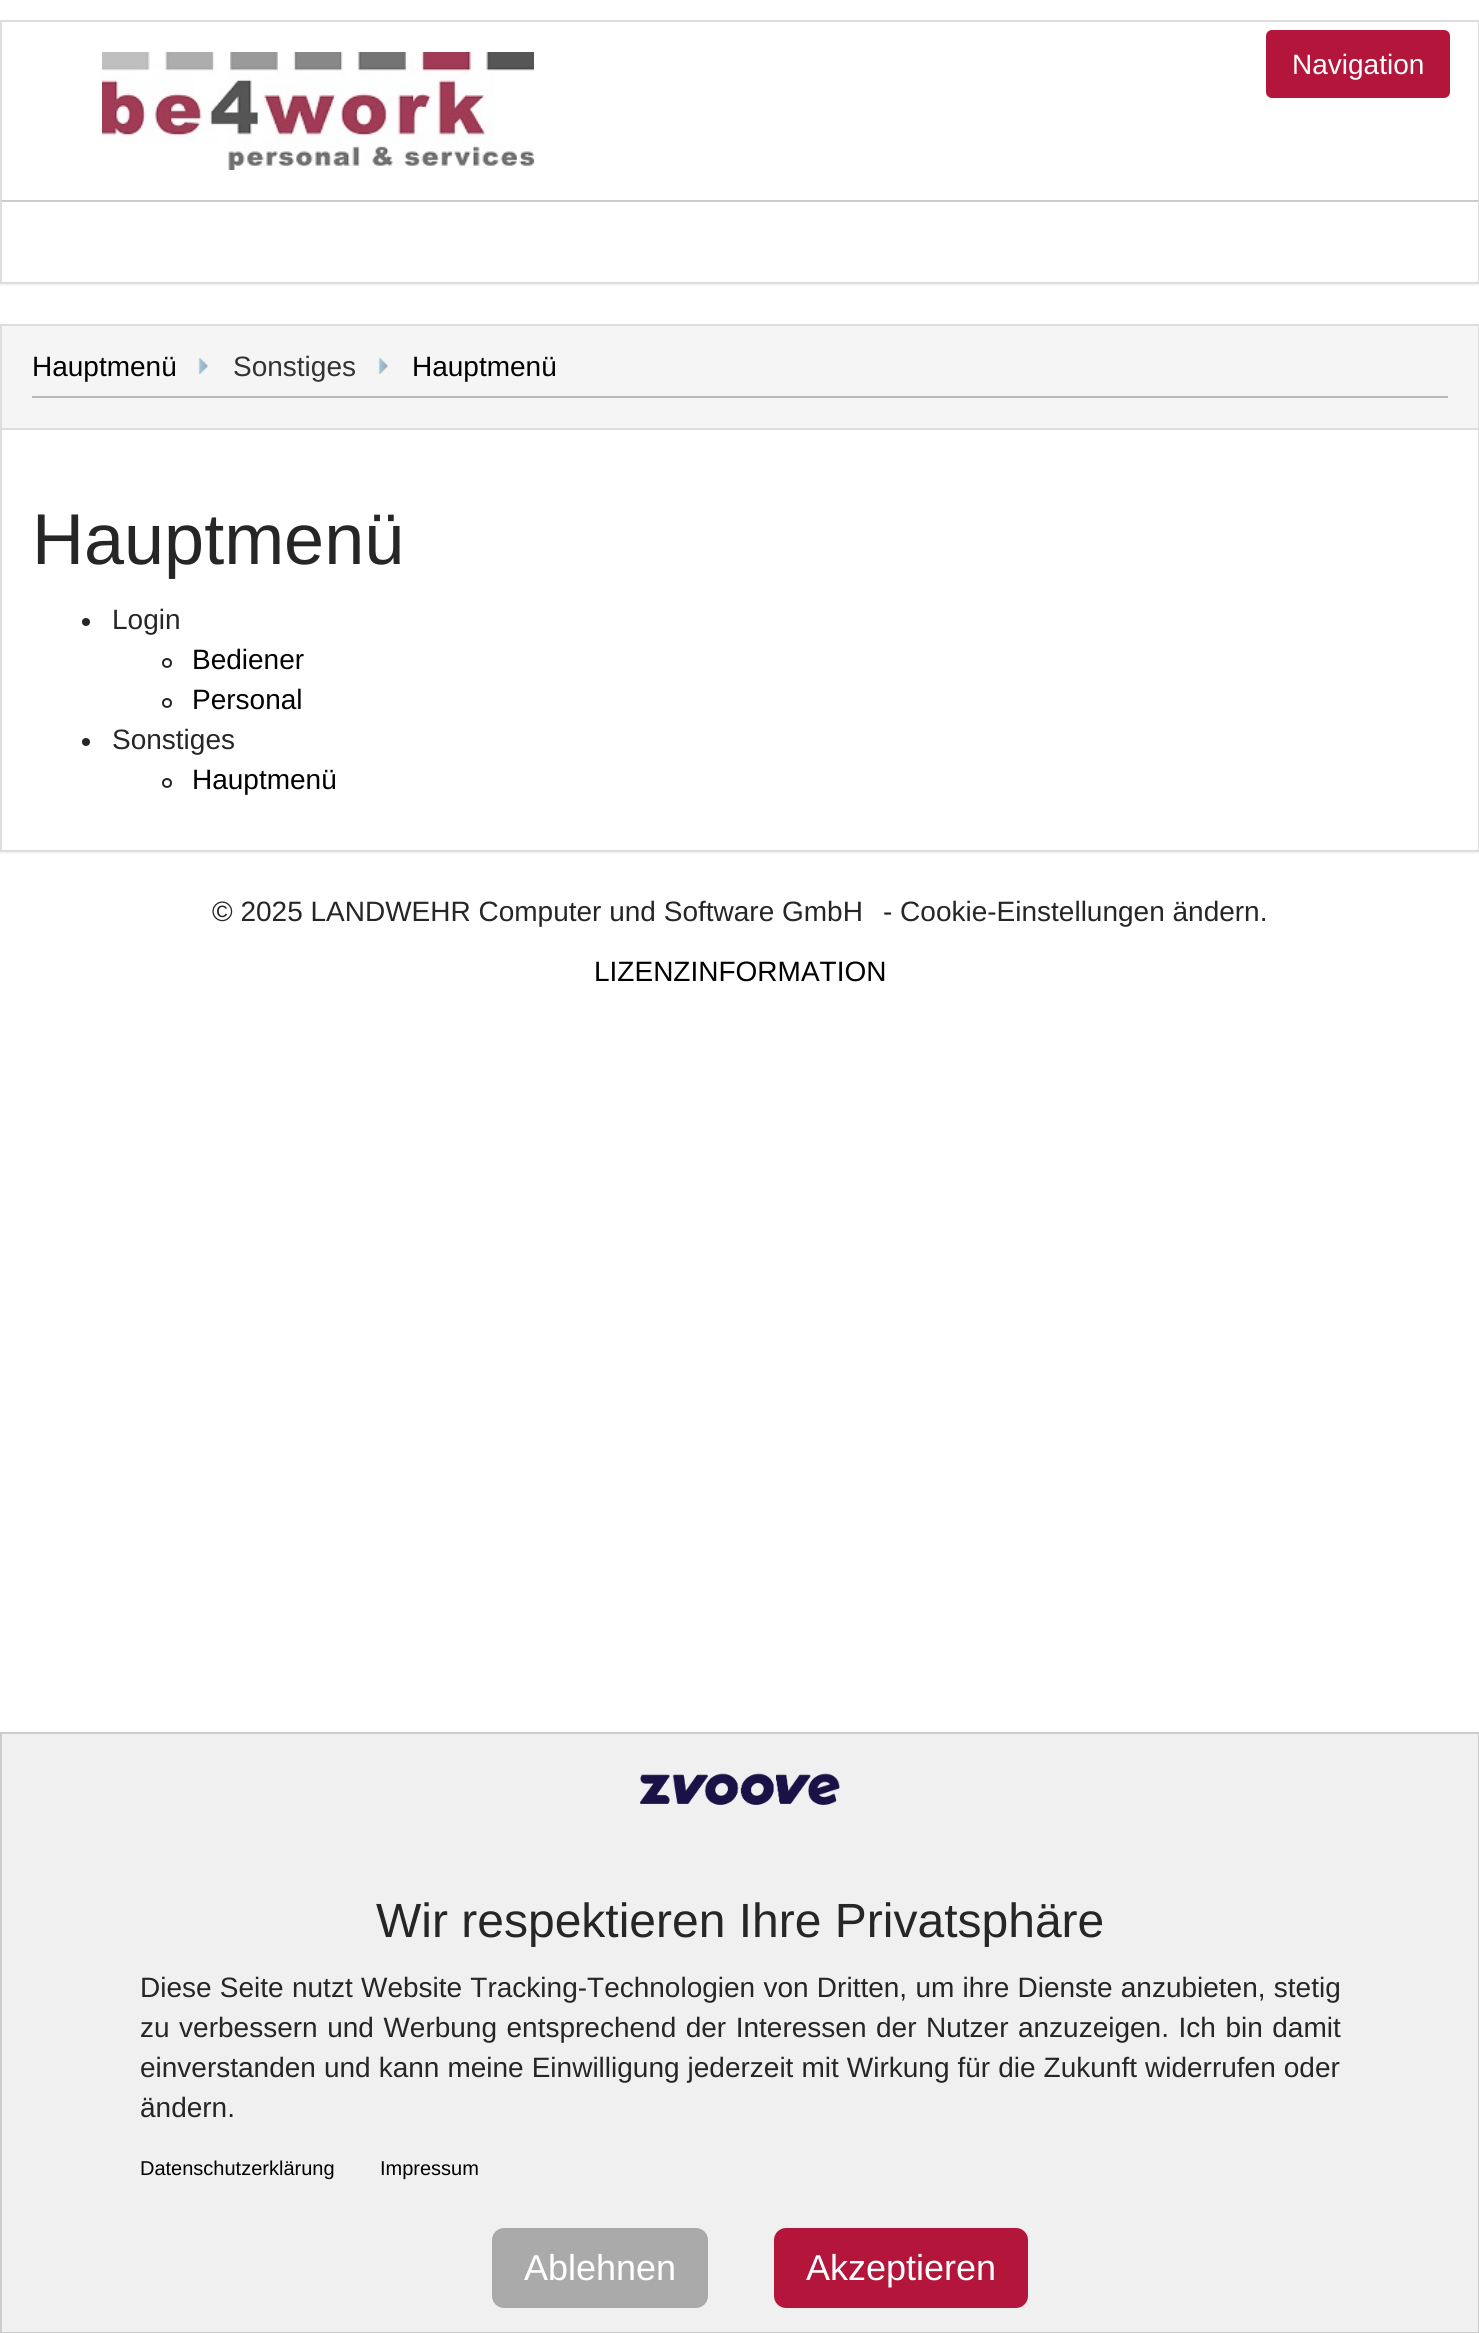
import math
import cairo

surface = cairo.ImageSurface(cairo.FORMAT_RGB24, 1479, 2333)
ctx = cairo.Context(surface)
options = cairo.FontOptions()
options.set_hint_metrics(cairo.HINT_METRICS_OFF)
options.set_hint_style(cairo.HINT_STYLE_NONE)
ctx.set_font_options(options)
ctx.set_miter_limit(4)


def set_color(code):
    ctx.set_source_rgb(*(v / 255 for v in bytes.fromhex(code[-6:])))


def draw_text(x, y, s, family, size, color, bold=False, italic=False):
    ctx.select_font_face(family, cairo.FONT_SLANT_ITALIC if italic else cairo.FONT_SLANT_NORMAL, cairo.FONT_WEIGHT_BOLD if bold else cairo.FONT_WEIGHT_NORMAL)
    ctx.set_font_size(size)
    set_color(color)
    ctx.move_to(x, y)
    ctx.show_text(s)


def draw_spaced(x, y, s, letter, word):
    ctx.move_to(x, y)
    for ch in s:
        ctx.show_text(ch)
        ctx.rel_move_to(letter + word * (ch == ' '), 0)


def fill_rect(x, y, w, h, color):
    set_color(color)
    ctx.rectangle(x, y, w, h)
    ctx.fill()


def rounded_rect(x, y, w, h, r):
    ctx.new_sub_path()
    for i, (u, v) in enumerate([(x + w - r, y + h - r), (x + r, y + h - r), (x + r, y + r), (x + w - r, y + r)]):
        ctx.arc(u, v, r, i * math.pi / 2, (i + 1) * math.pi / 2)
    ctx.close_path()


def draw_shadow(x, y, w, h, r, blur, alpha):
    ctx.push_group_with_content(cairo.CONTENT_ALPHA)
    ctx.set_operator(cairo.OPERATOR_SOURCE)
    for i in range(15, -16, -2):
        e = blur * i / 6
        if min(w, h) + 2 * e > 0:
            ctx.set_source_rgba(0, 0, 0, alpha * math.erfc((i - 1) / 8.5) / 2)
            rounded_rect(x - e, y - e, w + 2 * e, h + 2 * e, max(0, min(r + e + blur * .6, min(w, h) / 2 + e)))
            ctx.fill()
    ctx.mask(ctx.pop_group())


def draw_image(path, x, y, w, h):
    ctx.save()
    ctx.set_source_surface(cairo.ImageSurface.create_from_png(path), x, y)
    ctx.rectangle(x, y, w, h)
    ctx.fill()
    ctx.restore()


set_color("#ffffff")
ctx.paint()
ctx.save()
ctx.rectangle(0, 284, 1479, 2)
ctx.clip()
set_color("#000000")
draw_shadow(0, 22, 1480, 264, 0, 1, 0.05)
ctx.restore()
ctx.rectangle(1, 21, 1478, 262)
set_color("#dddddd")
ctx.stroke()
draw_image("assets/img1.png", 102, 52, 432, 118)
fill_rect(2, 200, 1476, 2, "#cccccc")
set_color("#b4163b")
rounded_rect(1267, 31, 182, 66, 5)
ctx.fill_preserve()
ctx.stroke()
draw_text(1292, 74, "Navigation", "Liberation Sans", 28, "#ffffff")
ctx.save()
ctx.rectangle(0, 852, 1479, 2)
ctx.clip()
set_color("#000000")
draw_shadow(0, 326, 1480, 528, 0, 1, 0.05)
ctx.restore()
ctx.rectangle(1, 325, 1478, 526)
set_color("#dddddd")
ctx.stroke()
fill_rect(2, 326, 1476, 102, "#f5f5f5")
fill_rect(2, 428, 1476, 2, "#dddddd")
fill_rect(32, 396, 1416, 2, "#b8b8b8")
draw_text(32, 376, "Hauptmenü", "Liberation Sans", 28, "#000000")
draw_image("assets/img2.png", 198, 358, 10, 16)
draw_text(233, 376, "Sonstiges", "Liberation Sans", 28, "#333333")
draw_image("assets/img2.png", 378, 358, 10, 16)
draw_text(412, 376, "Hauptmenü", "Liberation Sans", 28, "#000000")
draw_text(32, 564, "Hauptmenü", "Liberation Sans", 72, "#262626")
ctx.new_path()
ctx.arc(86, 622, 4, 0, 2 * math.pi)
ctx.fill()
draw_text(112, 629, "Login", "Liberation Sans", 28, "#262626")
ctx.new_path()
ctx.arc(167, 663, 4, 0, 2 * math.pi)
ctx.stroke()
draw_text(192, 669, "Bediener", "Liberation Sans", 28, "#000000")
ctx.new_path()
ctx.arc(167, 703, 4, 0, 2 * math.pi)
set_color("#262626")
ctx.stroke()
draw_text(192, 709, "Personal", "Liberation Sans", 28, "#000000")
set_color("#262626")
ctx.new_path()
ctx.arc(86, 742, 4, 0, 2 * math.pi)
ctx.fill()
draw_text(112, 749, "Sonstiges", "Liberation Sans", 28, "#262626")
ctx.new_path()
ctx.arc(167, 783, 4, 0, 2 * math.pi)
ctx.stroke()
draw_text(192, 789, "Hauptmenü", "Liberation Sans", 28, "#000000")
draw_text(212, 921, "© 2025 LANDWEHR Computer und Software GmbH", "Liberation Sans", 28, "#262626")
draw_text(883, 921, "- Cookie-Einstellungen ändern.", "Liberation Sans", 28, "#262626")
draw_text(594, 981, "LIZENZINFORMATION", "Liberation Sans", 28, "#000000")
set_color("#f0f0f0")
ctx.rectangle(1, 1733, 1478, 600)
ctx.fill_preserve()
set_color("#cccccc")
ctx.stroke()
draw_image("assets/img3.png", 640, 1773, 200, 32)
draw_text(376, 1937, "Wir respektieren Ihre Privatsphäre", "Liberation Sans", 48, "#262626")
ctx.set_font_size(28)
draw_spaced(140, 1997, "Diese Seite nutzt Website Tracking-Technologien von Dritten, um ihre Dienste anzubieten, stetig", 0, 0.5)
draw_spaced(140, 2037, "zu verbessern und Werbung entsprechend der Interessen der Nutzer anzuzeigen. Ich bin damit", 0, 1.75)
draw_spaced(140, 2077, "einverstanden und kann meine Einwilligung jederzeit mit Wirkung für die Zukunft widerrufen oder", 0, 0.25)
draw_text(140, 2117, "ändern.", "Liberation Sans", 28, "#262626")
draw_text(140, 2175, "Datenschutzerklärung", "Liberation Sans", 20, "#000000")
draw_text(380, 2175, "Impressum", "Liberation Sans", 20, "#000000")
set_color("#aaaaaa")
rounded_rect(492, 2228, 216, 80, 12)
ctx.fill()
draw_text(524, 2280, "Ablehnen", "Liberation Sans", 36, "#ffffff")
set_color("#b4163b")
rounded_rect(774, 2228, 254, 80, 12)
ctx.fill()
draw_text(806, 2280, "Akzeptieren", "Liberation Sans", 36, "#ffffff")
surface.write_to_png("output.png")
